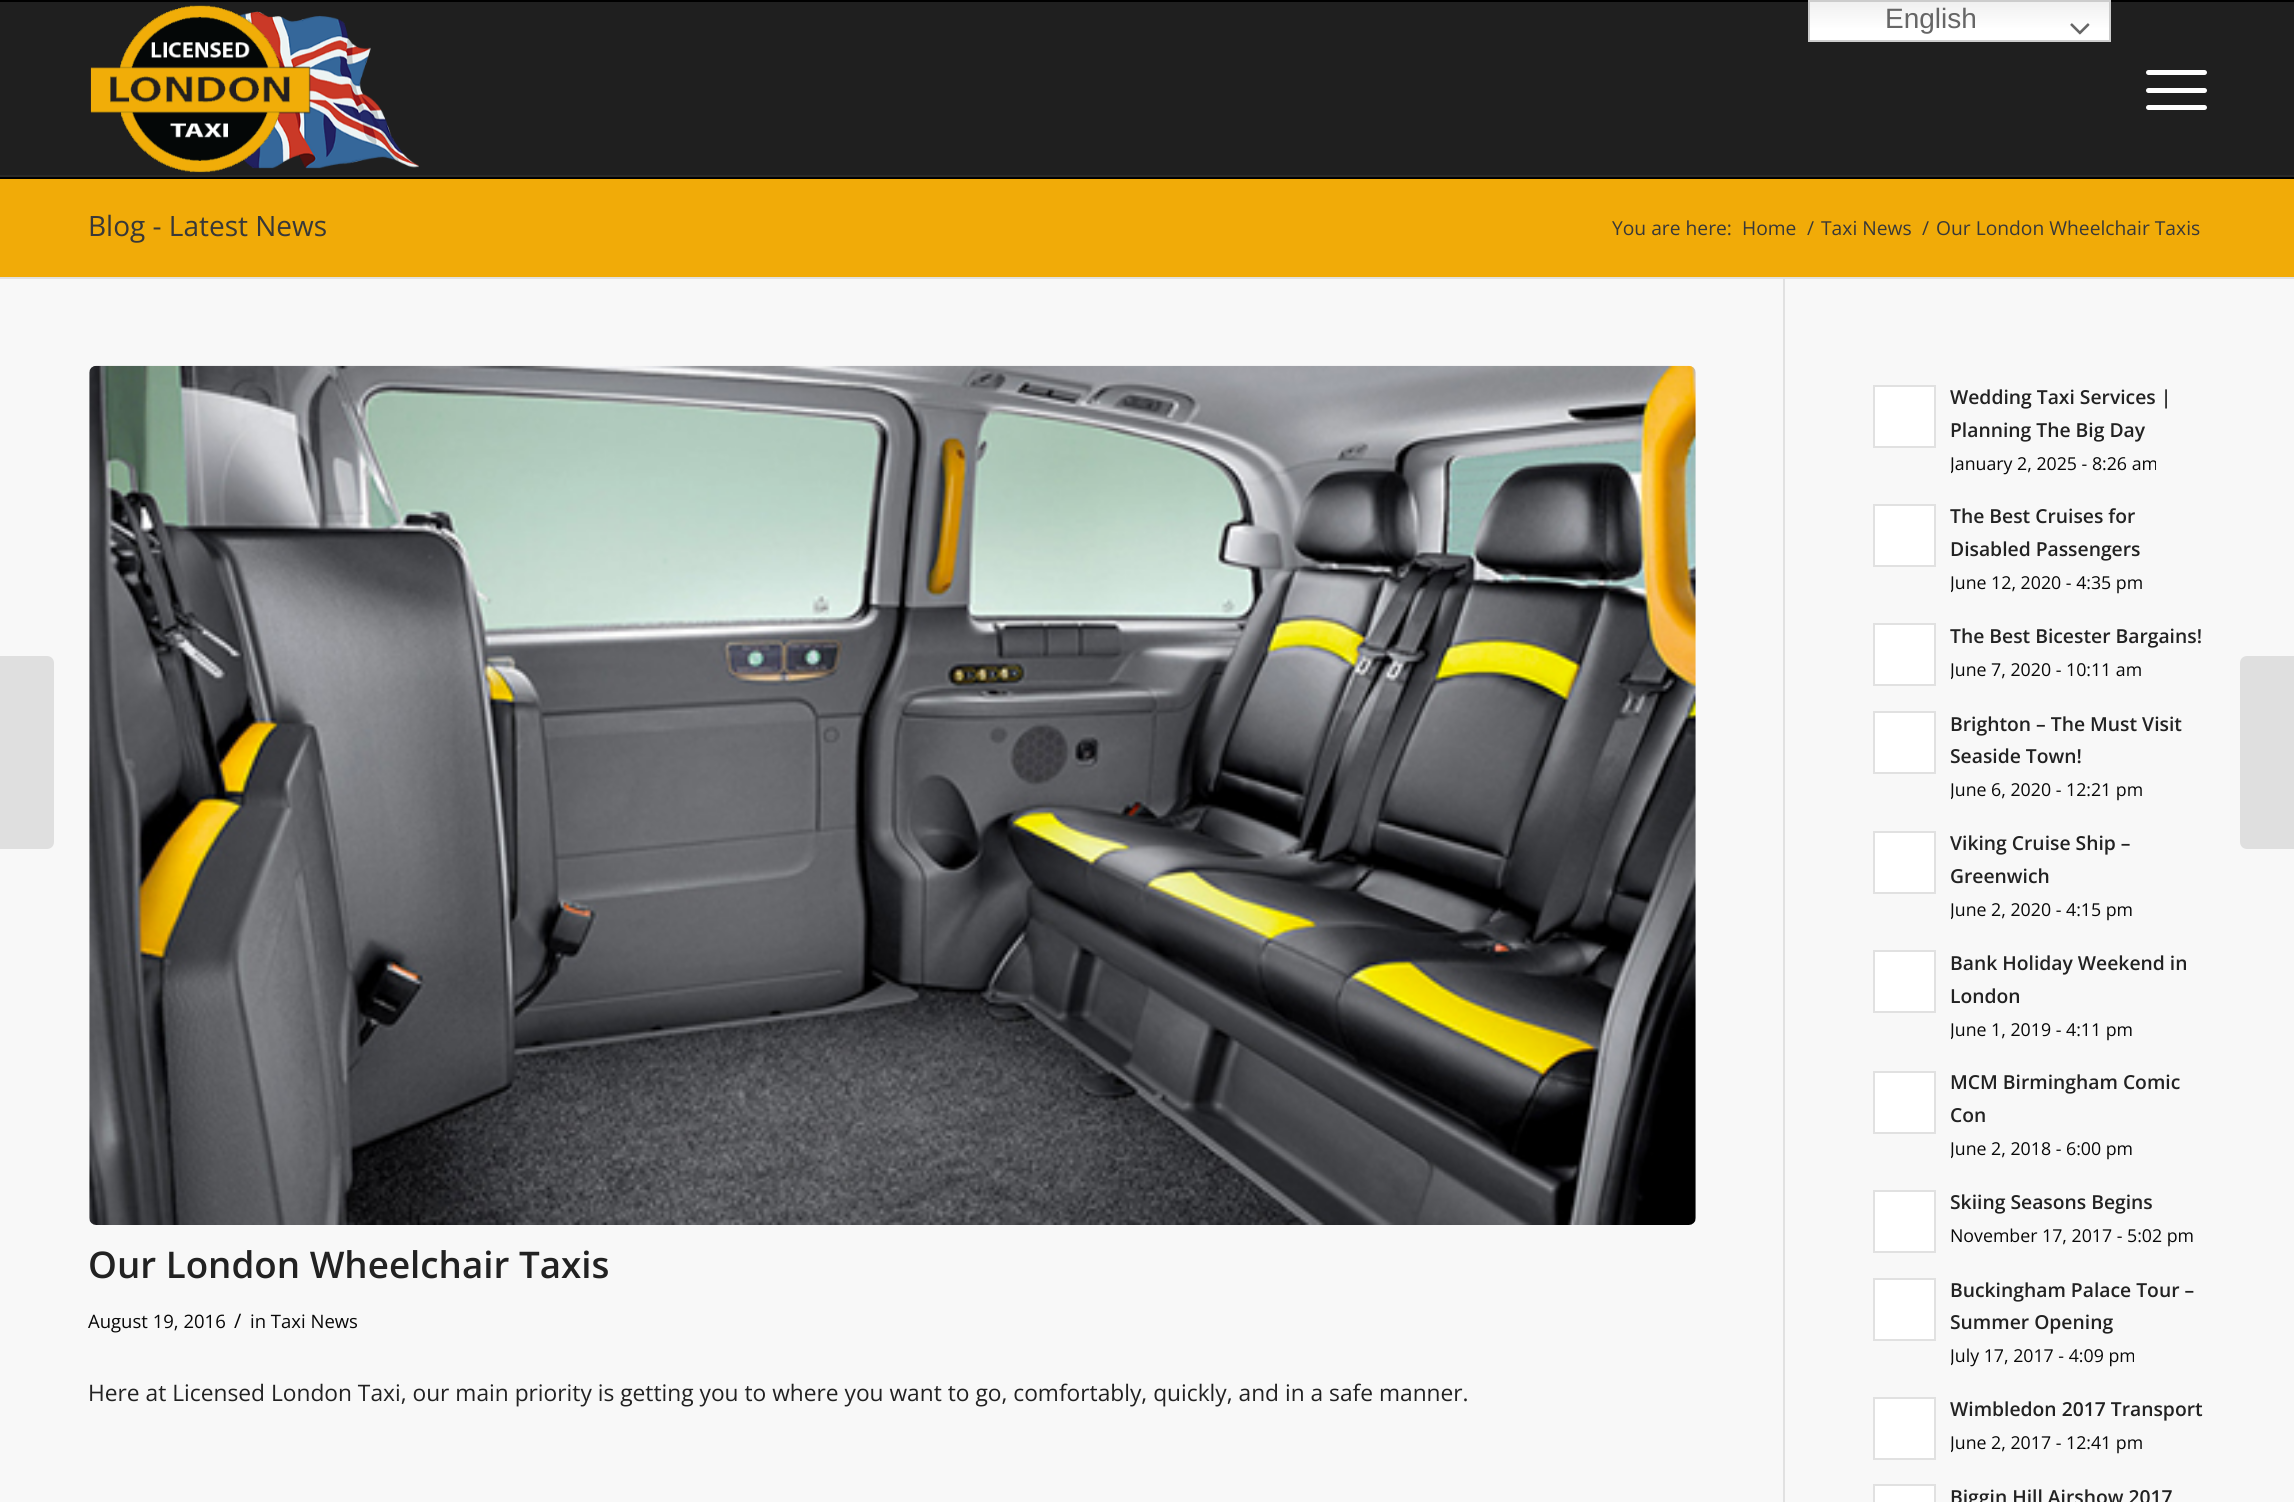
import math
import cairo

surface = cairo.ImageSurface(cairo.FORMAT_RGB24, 2294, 1502)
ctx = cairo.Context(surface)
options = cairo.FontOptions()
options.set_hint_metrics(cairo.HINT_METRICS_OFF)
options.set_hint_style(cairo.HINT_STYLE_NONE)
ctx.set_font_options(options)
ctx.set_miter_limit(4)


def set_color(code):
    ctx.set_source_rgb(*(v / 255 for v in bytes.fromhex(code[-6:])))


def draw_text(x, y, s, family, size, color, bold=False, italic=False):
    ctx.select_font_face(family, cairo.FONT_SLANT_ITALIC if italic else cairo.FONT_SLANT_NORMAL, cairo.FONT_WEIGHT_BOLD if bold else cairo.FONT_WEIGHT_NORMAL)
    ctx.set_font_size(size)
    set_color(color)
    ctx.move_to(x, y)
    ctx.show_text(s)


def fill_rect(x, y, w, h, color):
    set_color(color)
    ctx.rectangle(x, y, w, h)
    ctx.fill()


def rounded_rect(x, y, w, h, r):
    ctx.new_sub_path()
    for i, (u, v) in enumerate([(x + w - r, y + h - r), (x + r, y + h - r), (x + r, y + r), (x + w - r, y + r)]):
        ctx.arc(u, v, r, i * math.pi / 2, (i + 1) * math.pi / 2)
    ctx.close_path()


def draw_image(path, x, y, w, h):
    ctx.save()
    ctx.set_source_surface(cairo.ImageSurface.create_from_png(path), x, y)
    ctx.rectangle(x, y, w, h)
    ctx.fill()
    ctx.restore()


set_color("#1f1f1f")
ctx.paint()
gradient = cairo.LinearGradient(1959, 0, 1959, 42)
gradient.add_color_stop_rgba(0, 0.937, 0.937, 0.937, 1)
gradient.add_color_stop_rgba(0.7, 1, 1, 1, 1)
ctx.set_source(gradient)
ctx.rectangle(1810, 2, 299, 38)
ctx.fill()
fill_rect(0, 0, 2294, 2, "#000000")
ctx.rectangle(1809, 1, 301, 40)
set_color("#cccccc")
ctx.stroke()
draw_text(1885, 28, "English", "Liberation Sans", 28, "#666666")
draw_image("assets/img1.png", 2070, 23, 20, 12)
fill_rect(0, 177, 2294, 2, "#000000")
draw_image("assets/img2.png", 90, 5, 329, 168)
set_color("#ffffff")
rounded_rect(2146, 88, 61, 5, 2.5)
ctx.fill()
rounded_rect(2146, 70, 61, 5, 2.5)
ctx.fill()
rounded_rect(2146, 105, 61, 5, 2.5)
ctx.fill()
fill_rect(0, 279, 2294, 1223, "#f8f8f8")
set_color("#dfdfdf")
ctx.new_path()
ctx.move_to(0, 656)
ctx.line_to(47, 656)
ctx.curve_to(51, 656, 54, 659, 54, 663)
ctx.line_to(54, 842)
ctx.curve_to(54, 846, 51, 849, 47, 849)
ctx.line_to(0, 849)
ctx.close_path()
ctx.fill()
fill_rect(0, 179, 2294, 98, "#f1ab08")
fill_rect(0, 175, 2294, 2, "#292929")
draw_text(88, 236, "Blog - Latest News", "Open Sans", 28, "#383838")
draw_text(1612, 235, "You are here:", "Open Sans", 19.25, "#383838")
draw_text(1742, 235, "Home", "Open Sans", 19.25, "#383838")
draw_text(1807, 235, "/", "Open Sans", 19.25, "#383838")
draw_text(1821, 235, "Taxi News", "Open Sans", 19.25, "#383838")
draw_text(1922, 235, "/", "Open Sans", 19.25, "#383838")
draw_text(1936, 235, "Our London Wheelchair Taxis", "Open Sans", 19.25, "#383838")
fill_rect(0, 277, 2294, 2, "#e1e1e1")
fill_rect(1783, 278, 2, 1224, "#e1e1e1")
draw_image("assets/img3.png", 89, 365, 1607, 860)
draw_text(88, 1278, "Our London Wheelchair Taxis", "Open Sans SemiBold", 36.75, "#222222")
draw_text(88, 1328, "August 19, 2016", "Open Sans", 18.5, "#080808")
draw_text(234, 1328, "/", "Open Sans", 20, "#080808")
draw_text(250, 1328, "in Taxi News", "Open Sans", 18.5, "#080808")
draw_text(88, 1401, "Here at Licensed London Taxi, our main priority is getting you to where you want to go, comfortably, quickly, and in a safe manner.", "Open Sans", 22.75, "#222222")
set_color("#ffffff")
ctx.rectangle(1874, 386, 61, 61)
ctx.fill_preserve()
set_color("#e1e1e1")
ctx.stroke()
draw_text(1950, 404, "Wedding Taxi Services |", "Open Sans SemiBold", 19.3, "#222222")
draw_text(1950, 437, "Planning The Big Day", "Open Sans SemiBold", 19.3, "#222222")
ctx.save()
ctx.rectangle(1951, 382, 256, 98)
ctx.clip()
draw_text(1950, 470, "January 2, 2025 - 8:26 am", "Open Sans", 17.75, "#080808")
ctx.restore()
set_color("#ffffff")
ctx.rectangle(1874, 505, 61, 61)
ctx.fill_preserve()
set_color("#e1e1e1")
ctx.stroke()
draw_text(1950, 523, "The Best Cruises for", "Open Sans SemiBold", 19.3, "#222222")
draw_text(1950, 556, "Disabled Passengers", "Open Sans SemiBold", 19.3, "#222222")
ctx.save()
ctx.rectangle(1951, 501, 256, 98)
ctx.clip()
draw_text(1950, 589, "June 12, 2020 - 4:35 pm", "Open Sans", 17.75, "#080808")
ctx.restore()
set_color("#ffffff")
ctx.rectangle(1874, 624, 61, 61)
ctx.fill_preserve()
set_color("#e1e1e1")
ctx.stroke()
draw_text(1950, 643, "The Best Bicester Bargains!", "Open Sans SemiBold", 19.3, "#222222")
ctx.save()
ctx.rectangle(1951, 620, 256, 66)
ctx.clip()
draw_text(1950, 676, "June 7, 2020 - 10:11 am", "Open Sans", 17.75, "#080808")
ctx.restore()
set_color("#ffffff")
ctx.rectangle(1874, 712, 61, 61)
ctx.fill_preserve()
set_color("#e1e1e1")
ctx.stroke()
draw_text(1950, 731, "Brighton – The Must Visit", "Open Sans SemiBold", 19.3, "#222222")
draw_text(1950, 763, "Seaside Town!", "Open Sans SemiBold", 19.3, "#222222")
ctx.save()
ctx.rectangle(1951, 707, 256, 100)
ctx.clip()
draw_text(1950, 796, "June 6, 2020 - 12:21 pm", "Open Sans", 17.75, "#080808")
ctx.restore()
set_color("#ffffff")
ctx.rectangle(1874, 832, 61, 61)
ctx.fill_preserve()
set_color("#e1e1e1")
ctx.stroke()
draw_text(1950, 850, "Viking Cruise Ship –", "Open Sans SemiBold", 19.3, "#222222")
draw_text(1950, 883, "Greenwich", "Open Sans SemiBold", 19.3, "#222222")
ctx.save()
ctx.rectangle(1951, 828, 256, 98)
ctx.clip()
draw_text(1950, 916, "June 2, 2020 - 4:15 pm", "Open Sans", 17.75, "#080808")
ctx.restore()
set_color("#ffffff")
ctx.rectangle(1874, 951, 61, 61)
ctx.fill_preserve()
set_color("#e1e1e1")
ctx.stroke()
draw_text(1950, 970, "Bank Holiday Weekend in", "Open Sans SemiBold", 19.3, "#222222")
draw_text(1950, 1003, "London", "Open Sans SemiBold", 19.3, "#222222")
ctx.save()
ctx.rectangle(1951, 947, 256, 100)
ctx.clip()
draw_text(1950, 1036, "June 1, 2019 - 4:11 pm", "Open Sans", 17.75, "#080808")
ctx.restore()
set_color("#ffffff")
ctx.rectangle(1874, 1072, 61, 61)
ctx.fill_preserve()
set_color("#e1e1e1")
ctx.stroke()
draw_text(1950, 1089, "MCM Birmingham Comic", "Open Sans SemiBold", 19.3, "#222222")
draw_text(1950, 1122, "Con", "Open Sans SemiBold", 19.3, "#222222")
ctx.save()
ctx.rectangle(1951, 1068, 256, 98)
ctx.clip()
draw_text(1950, 1155, "June 2, 2018 - 6:00 pm", "Open Sans", 17.75, "#080808")
ctx.restore()
set_color("#ffffff")
ctx.rectangle(1874, 1191, 61, 61)
ctx.fill_preserve()
set_color("#e1e1e1")
ctx.stroke()
draw_text(1950, 1209, "Skiing Seasons Begins", "Open Sans SemiBold", 19.3, "#222222")
draw_text(1950, 1242, "November 17, 2017 - 5:02 pm", "Open Sans", 17.75, "#080808")
set_color("#ffffff")
ctx.rectangle(1874, 1279, 61, 61)
ctx.fill_preserve()
set_color("#e1e1e1")
ctx.stroke()
draw_text(1950, 1297, "Buckingham Palace Tour –", "Open Sans SemiBold", 19.3, "#222222")
draw_text(1950, 1329, "Summer Opening", "Open Sans SemiBold", 19.3, "#222222")
ctx.save()
ctx.rectangle(1951, 1274, 256, 98)
ctx.clip()
draw_text(1950, 1362, "July 17, 2017 - 4:09 pm", "Open Sans", 17.75, "#080808")
ctx.restore()
set_color("#ffffff")
ctx.rectangle(1874, 1398, 61, 61)
ctx.fill_preserve()
set_color("#e1e1e1")
ctx.stroke()
draw_text(1950, 1416, "Wimbledon 2017 Transport", "Open Sans SemiBold", 19.3, "#222222")
ctx.save()
ctx.rectangle(1951, 1393, 256, 67)
ctx.clip()
draw_text(1950, 1449, "June 2, 2017 - 12:41 pm", "Open Sans", 17.75, "#080808")
ctx.restore()
set_color("#ffffff")
ctx.rectangle(1874, 1485, 61, 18)
ctx.fill_preserve()
set_color("#e1e1e1")
ctx.stroke()
draw_text(1950, 1504, "Biggin Hill Airshow 2017", "Open Sans SemiBold", 19.3, "#222222")
set_color("#dfdfdf")
ctx.new_path()
ctx.move_to(2247, 656)
ctx.line_to(2294, 656)
ctx.line_to(2294, 849)
ctx.line_to(2247, 849)
ctx.curve_to(2243, 849, 2240, 846, 2240, 842)
ctx.line_to(2240, 663)
ctx.curve_to(2240, 659, 2243, 656, 2247, 656)
ctx.close_path()
ctx.fill()
surface.write_to_png("output.png")
